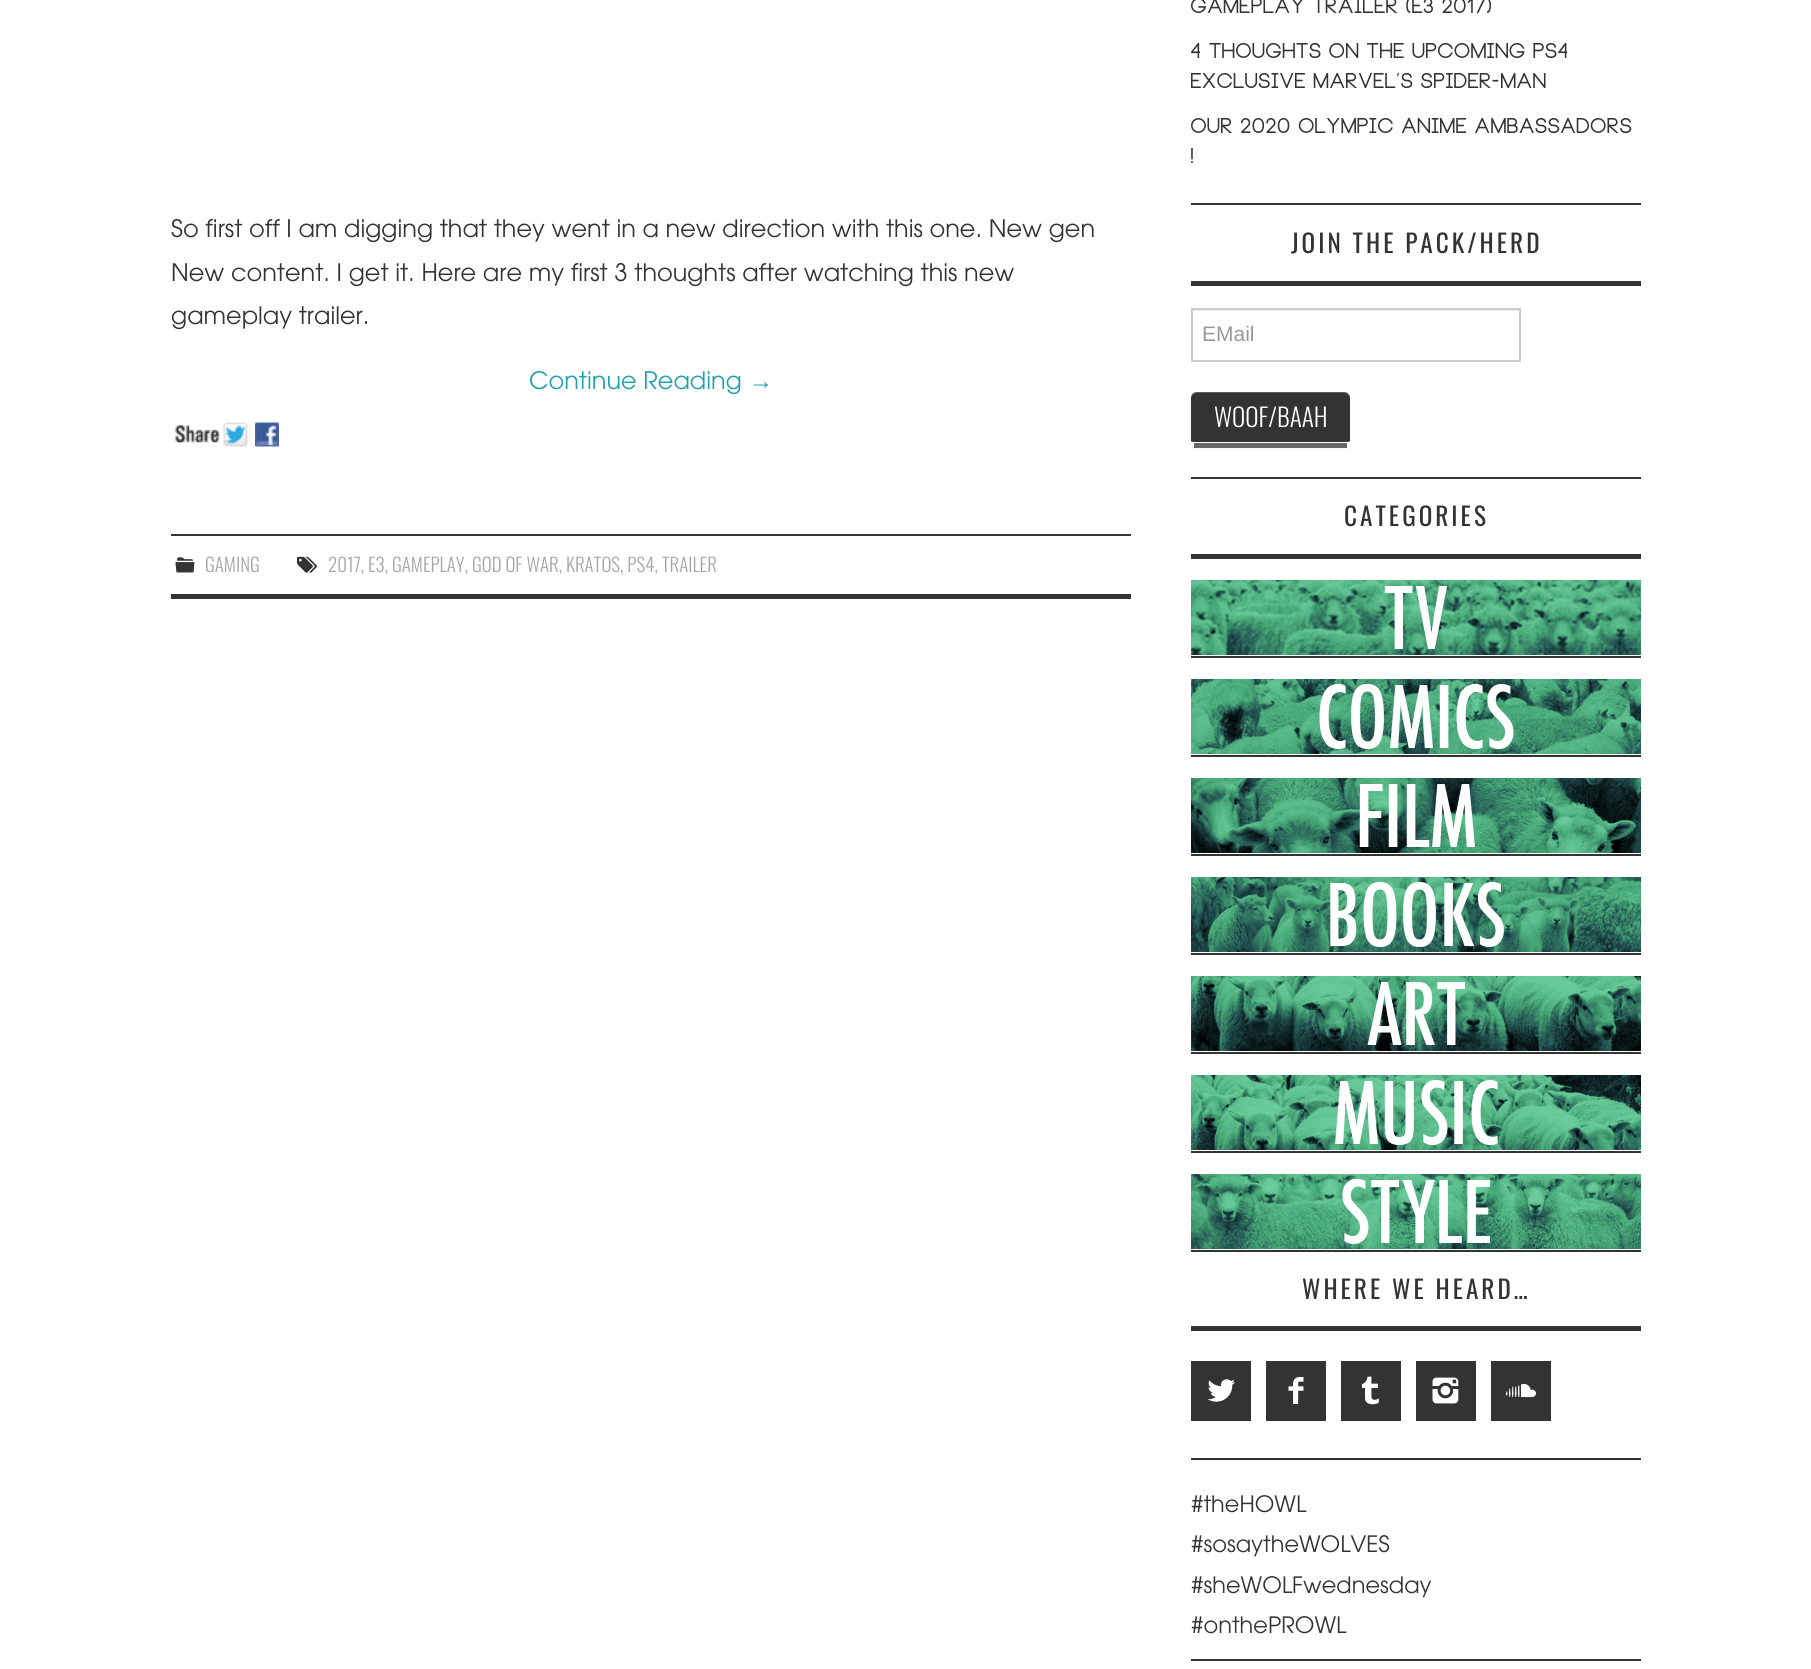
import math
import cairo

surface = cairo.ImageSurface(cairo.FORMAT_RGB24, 1811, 1669)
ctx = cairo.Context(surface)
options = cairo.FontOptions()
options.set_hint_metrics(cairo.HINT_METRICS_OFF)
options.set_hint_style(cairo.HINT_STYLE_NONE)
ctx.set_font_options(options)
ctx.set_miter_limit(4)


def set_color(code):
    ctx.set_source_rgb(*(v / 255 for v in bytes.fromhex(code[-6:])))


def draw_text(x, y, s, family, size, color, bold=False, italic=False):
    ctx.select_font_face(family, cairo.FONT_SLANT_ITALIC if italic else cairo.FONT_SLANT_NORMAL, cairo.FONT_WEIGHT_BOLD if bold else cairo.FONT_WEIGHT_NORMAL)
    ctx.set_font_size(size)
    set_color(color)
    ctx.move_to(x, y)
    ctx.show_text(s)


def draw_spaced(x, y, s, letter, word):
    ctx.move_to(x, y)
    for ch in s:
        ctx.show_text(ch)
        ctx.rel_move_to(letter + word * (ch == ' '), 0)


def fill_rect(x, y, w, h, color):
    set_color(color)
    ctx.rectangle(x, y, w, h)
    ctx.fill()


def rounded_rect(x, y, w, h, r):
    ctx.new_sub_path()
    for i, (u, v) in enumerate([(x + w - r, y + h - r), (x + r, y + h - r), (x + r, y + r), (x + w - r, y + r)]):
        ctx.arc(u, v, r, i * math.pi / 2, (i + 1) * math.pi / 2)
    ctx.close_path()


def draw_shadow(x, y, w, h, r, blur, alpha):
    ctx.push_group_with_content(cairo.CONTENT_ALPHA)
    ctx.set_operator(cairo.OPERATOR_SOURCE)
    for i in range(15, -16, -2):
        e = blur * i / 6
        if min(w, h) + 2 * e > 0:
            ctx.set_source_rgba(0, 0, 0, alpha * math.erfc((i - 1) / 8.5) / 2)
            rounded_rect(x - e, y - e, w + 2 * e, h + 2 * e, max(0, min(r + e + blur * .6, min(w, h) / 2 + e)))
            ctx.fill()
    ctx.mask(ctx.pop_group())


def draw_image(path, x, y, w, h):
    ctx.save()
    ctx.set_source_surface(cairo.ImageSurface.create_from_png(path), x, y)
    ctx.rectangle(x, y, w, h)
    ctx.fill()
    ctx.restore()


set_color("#ffffff")
ctx.paint()
draw_text(171, 237, "So first off I am digging that they went in a new direction with this one. New gen", "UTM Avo", 24, "#333333")
draw_text(171, 281, "New content. I get it. Here are my first 3 thoughts after watching this new", "UTM Avo", 24, "#333333")
draw_text(171, 324, "gameplay trailer.", "UTM Avo", 24, "#333333")
draw_text(529, 389, "Continue Reading", "UTM Avo", 24, "#1fa0ae")
draw_text(749, 389, "→", "Liberation Serif", 24, "#1fa0ae")
draw_image("assets/img1.png", 175, 425, 45, 19)
draw_image("assets/img2.png", 223, 422, 25, 25)
draw_image("assets/img3.png", 255, 422, 24, 25)
fill_rect(171, 534, 960, 2, "#333333")
fill_rect(171, 594, 960, 5, "#333333")
draw_image("assets/img4.png", 175, 557, 20, 16)
draw_text(205, 572, "GAMING", "Oswald Light", 18.9, "#a6a6a6")
draw_image("assets/img5.png", 297, 556, 20, 17)
draw_text(328, 572, "2017, E3, GAMEPLAY, GOD OF WAR, KRATOS, PS4, TRAILER", "Oswald Light", 18.9, "#a6a6a6")
fill_rect(1191, 203, 450, 2, "#333333")
draw_text(1191, 13, "Gameplay Trailer (E3 2017)", "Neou", 21, "#333333", bold=True)
draw_text(1191, 58, "4 Thoughts on the Upcoming PS4", "Neou", 21, "#333333", bold=True)
draw_text(1191, 88, "Exclusive Marvel’s Spider-Man", "Neou", 21, "#333333", bold=True)
draw_text(1191, 133, "Our 2020 Olympic Anime Ambassadors", "Neou", 21, "#333333", bold=True)
draw_text(1191, 163, "!", "Neou", 21, "#333333", bold=True)
fill_rect(1191, 477, 450, 2, "#333333")
fill_rect(1191, 281, 450, 5, "#333333")
ctx.select_font_face("Oswald")
ctx.set_font_size(25.25)
draw_spaced(1291, 253, "JOIN THE PACK/HERD", 3, 0)
fill_rect(1193, 310, 327, 1, "#ececec")
ctx.rectangle(1192, 309, 328, 52)
set_color("#cccccc")
ctx.stroke()
draw_text(1202, 341, "EMail", "Liberation Sans", 21, "#999999")
ctx.save()
ctx.set_fill_rule(cairo.FILL_RULE_EVEN_ODD)
ctx.new_path()
ctx.move_to(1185, 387)
ctx.line_to(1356, 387)
ctx.line_to(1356, 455)
ctx.line_to(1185, 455)
ctx.close_path()
ctx.move_to(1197, 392)
ctx.line_to(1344, 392)
ctx.curve_to(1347.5, 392, 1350, 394.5, 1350, 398)
ctx.line_to(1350, 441)
ctx.curve_to(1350, 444.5, 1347.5, 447, 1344, 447)
ctx.line_to(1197, 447)
ctx.curve_to(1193.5, 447, 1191, 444.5, 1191, 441)
ctx.line_to(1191, 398)
ctx.curve_to(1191, 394.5, 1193.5, 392, 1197, 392)
ctx.close_path()
ctx.clip()
set_color("#000000")
draw_shadow(1191, 393, 159, 56, 6, 1.5, 0.05)
ctx.restore()
set_color("#333333")
ctx.new_path()
ctx.move_to(1197, 392)
ctx.line_to(1344, 392)
ctx.curve_to(1347, 392, 1350, 394, 1350, 398)
ctx.line_to(1350, 441)
ctx.curve_to(1350, 442, 1347, 442, 1344, 442)
ctx.line_to(1197, 442)
ctx.curve_to(1194, 442, 1191, 442, 1191, 441)
ctx.line_to(1191, 398)
ctx.curve_to(1191, 394, 1194, 392, 1197, 392)
ctx.close_path()
ctx.fill()
ctx.set_source_rgba(1, 1, 1, 0.2)
ctx.new_path()
ctx.move_to(1197, 393)
ctx.line_to(1344, 393)
ctx.curve_to(1347, 393, 1350, 396, 1350, 399)
ctx.line_to(1350, 398)
ctx.curve_to(1350, 394, 1347, 392, 1344, 392)
ctx.line_to(1197, 392)
ctx.curve_to(1194, 392, 1191, 394, 1191, 398)
ctx.line_to(1191, 399)
ctx.curve_to(1191, 396, 1194, 393, 1197, 393)
ctx.close_path()
ctx.fill()
fill_rect(1194, 443, 153, 5, "#666666")
draw_text(1214, 427, "WOOF/BAAH", "Oswald Light", 25.25, "#ffffff")
fill_rect(1191, 656, 450, 2, "#333333")
fill_rect(1191, 554, 450, 5, "#333333")
ctx.select_font_face("Oswald")
draw_spaced(1344, 526, "CATEGORIES", 3, 0)
draw_image("assets/img6.png", 1191, 580, 450, 75)
fill_rect(1191, 755, 450, 2, "#333333")
draw_image("assets/img7.png", 1191, 679, 450, 75)
fill_rect(1191, 854, 450, 2, "#333333")
draw_image("assets/img8.png", 1191, 778, 450, 75)
fill_rect(1191, 953, 450, 2, "#333333")
draw_image("assets/img9.png", 1191, 877, 450, 75)
fill_rect(1191, 1052, 450, 2, "#333333")
draw_image("assets/img10.png", 1191, 976, 450, 75)
fill_rect(1191, 1151, 450, 2, "#333333")
draw_image("assets/img11.png", 1191, 1075, 450, 75)
fill_rect(1191, 1250, 450, 2, "#333333")
draw_image("assets/img12.png", 1191, 1174, 450, 75)
fill_rect(1191, 1458, 450, 2, "#333333")
fill_rect(1191, 1326, 450, 5, "#333333")
draw_spaced(1302, 1299, "WHERE WE HEARD…", 3, 0)
fill_rect(1191, 1361, 60, 60, "#333333")
draw_image("assets/img13.png", 1207, 1379, 28, 23)
fill_rect(1266, 1361, 60, 60, "#333333")
draw_image("assets/img14.png", 1288, 1377, 16, 27)
fill_rect(1341, 1361, 60, 60, "#333333")
draw_image("assets/img15.png", 1362, 1376, 17, 29)
fill_rect(1416, 1361, 60, 60, "#333333")
draw_image("assets/img16.png", 1432, 1377, 27, 27)
fill_rect(1491, 1361, 60, 60, "#333333")
draw_image("assets/img17.png", 1506, 1383, 30, 15)
fill_rect(1191, 1659, 450, 2, "#333333")
draw_text(1191, 1512, "#theHOWL", "UTM Avo", 22.5, "#333333")
draw_text(1191, 1552, "#sosaytheWOLVES", "UTM Avo", 22.5, "#333333")
draw_text(1191, 1593, "#sheWOLFwednesday", "UTM Avo", 22.5, "#333333")
draw_text(1191, 1633, "#onthePROWL", "UTM Avo", 22.5, "#333333")
surface.write_to_png("output.png")
